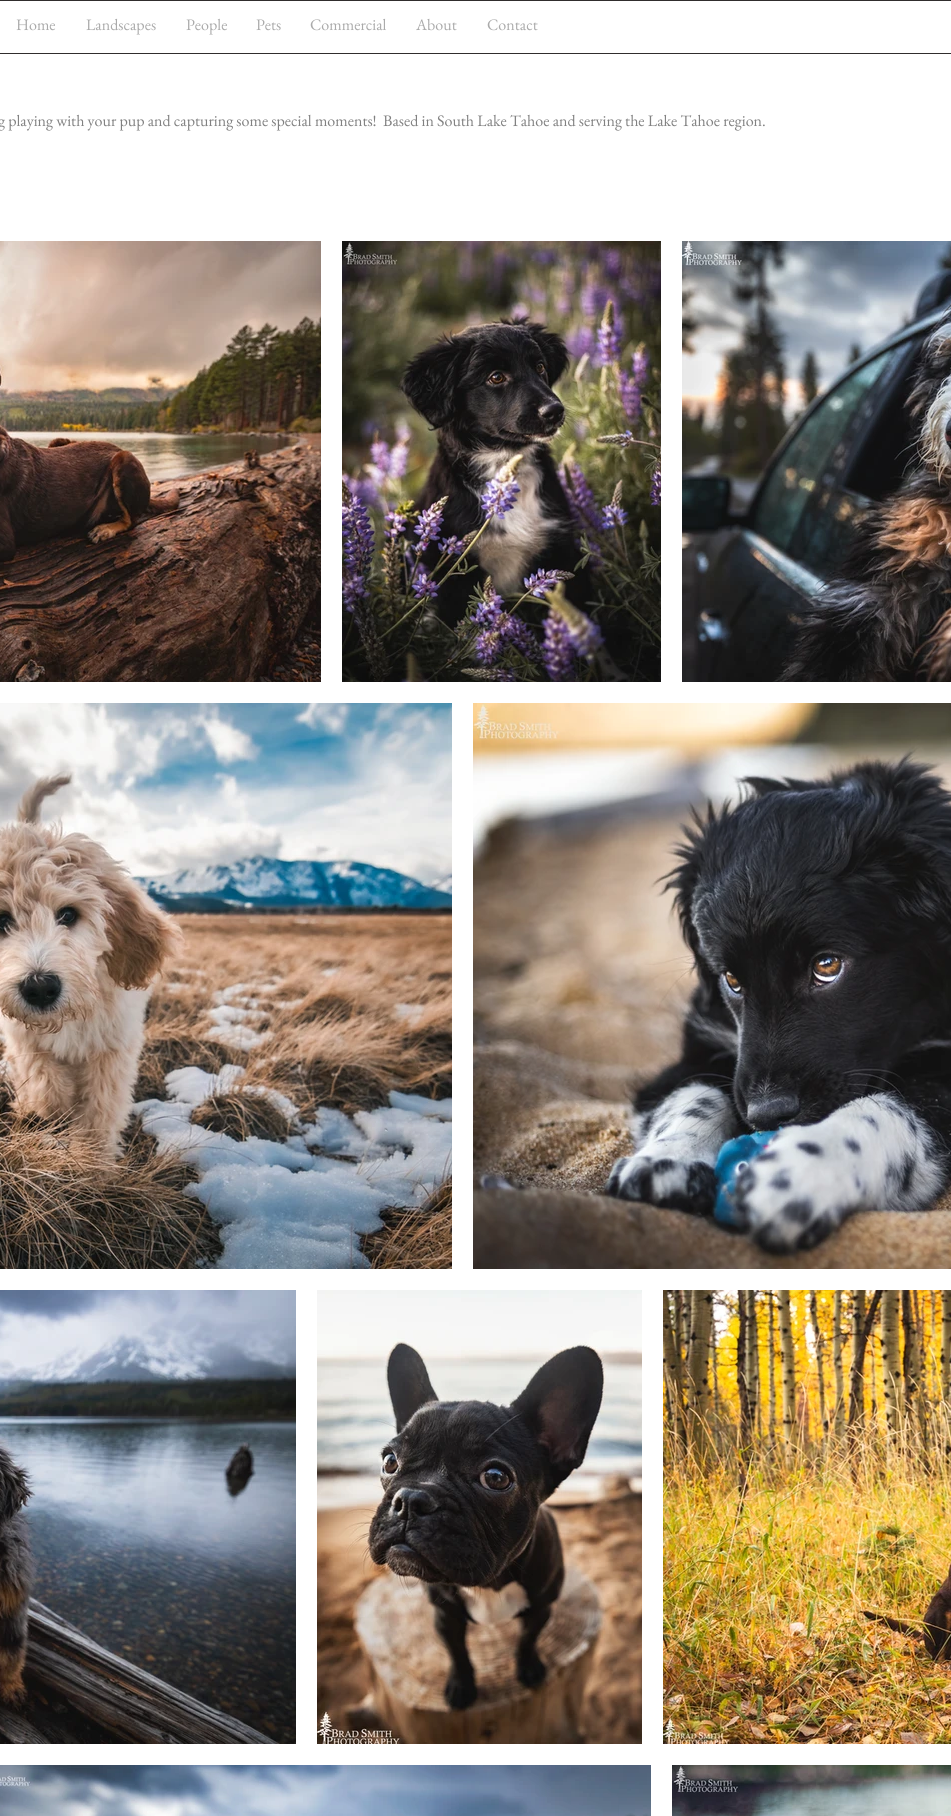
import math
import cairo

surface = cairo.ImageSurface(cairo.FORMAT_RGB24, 951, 1816)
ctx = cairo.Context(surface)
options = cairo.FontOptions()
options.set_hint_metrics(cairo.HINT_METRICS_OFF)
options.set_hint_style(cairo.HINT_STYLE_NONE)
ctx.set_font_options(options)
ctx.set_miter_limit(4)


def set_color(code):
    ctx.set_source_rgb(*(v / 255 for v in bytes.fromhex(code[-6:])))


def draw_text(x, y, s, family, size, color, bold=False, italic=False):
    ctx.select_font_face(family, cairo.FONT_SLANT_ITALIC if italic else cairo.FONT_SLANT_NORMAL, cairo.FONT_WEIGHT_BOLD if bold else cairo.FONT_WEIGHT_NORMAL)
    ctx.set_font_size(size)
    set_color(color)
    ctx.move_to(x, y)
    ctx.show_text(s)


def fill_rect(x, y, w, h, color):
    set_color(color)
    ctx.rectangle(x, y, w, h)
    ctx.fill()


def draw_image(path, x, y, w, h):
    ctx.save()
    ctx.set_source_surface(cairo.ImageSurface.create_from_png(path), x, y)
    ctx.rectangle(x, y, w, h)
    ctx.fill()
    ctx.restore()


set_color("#ffffff")
ctx.paint()
fill_rect(0, 0, 951, 1, "#302d2d")
fill_rect(0, 53, 951, 1, "#302d2d")
draw_text(16, 30, "Home", "EB Garamond", 16, "#aaaaaa")
draw_text(86, 30, "Landscapes", "EB Garamond", 16, "#aaaaaa")
draw_text(186, 30, "People", "EB Garamond", 16, "#aaaaaa")
draw_text(256, 30, "Pets", "EB Garamond", 16, "#aaaaaa")
draw_text(310, 30, "Commercial", "EB Garamond", 16, "#aaaaaa")
draw_text(416, 30, "About", "EB Garamond", 16, "#aaaaaa")
draw_text(487, 30, "Contact", "EB Garamond", 16, "#aaaaaa")
draw_text(-2, 126, "g playing with your pup and capturing some special moments!  Based in South Lake Tahoe and serving the Lake Tahoe region.", "EB Garamond", 16, "#818181")
draw_image("assets/img1.png", 0, 241, 321, 441)
draw_image("assets/img2.png", 342, 241, 319, 441)
draw_image("assets/img3.png", 682, 241, 269, 441)
draw_image("assets/img4.png", 0, 703, 452, 566)
draw_image("assets/img5.png", 473, 703, 478, 566)
draw_image("assets/img6.png", 0, 1290, 296, 454)
draw_image("assets/img7.png", 317, 1290, 325, 454)
draw_image("assets/img8.png", 663, 1290, 288, 454)
draw_image("assets/img9.png", 0, 1765, 651, 51)
draw_image("assets/img10.png", 672, 1765, 279, 51)
surface.write_to_png("output.png")
